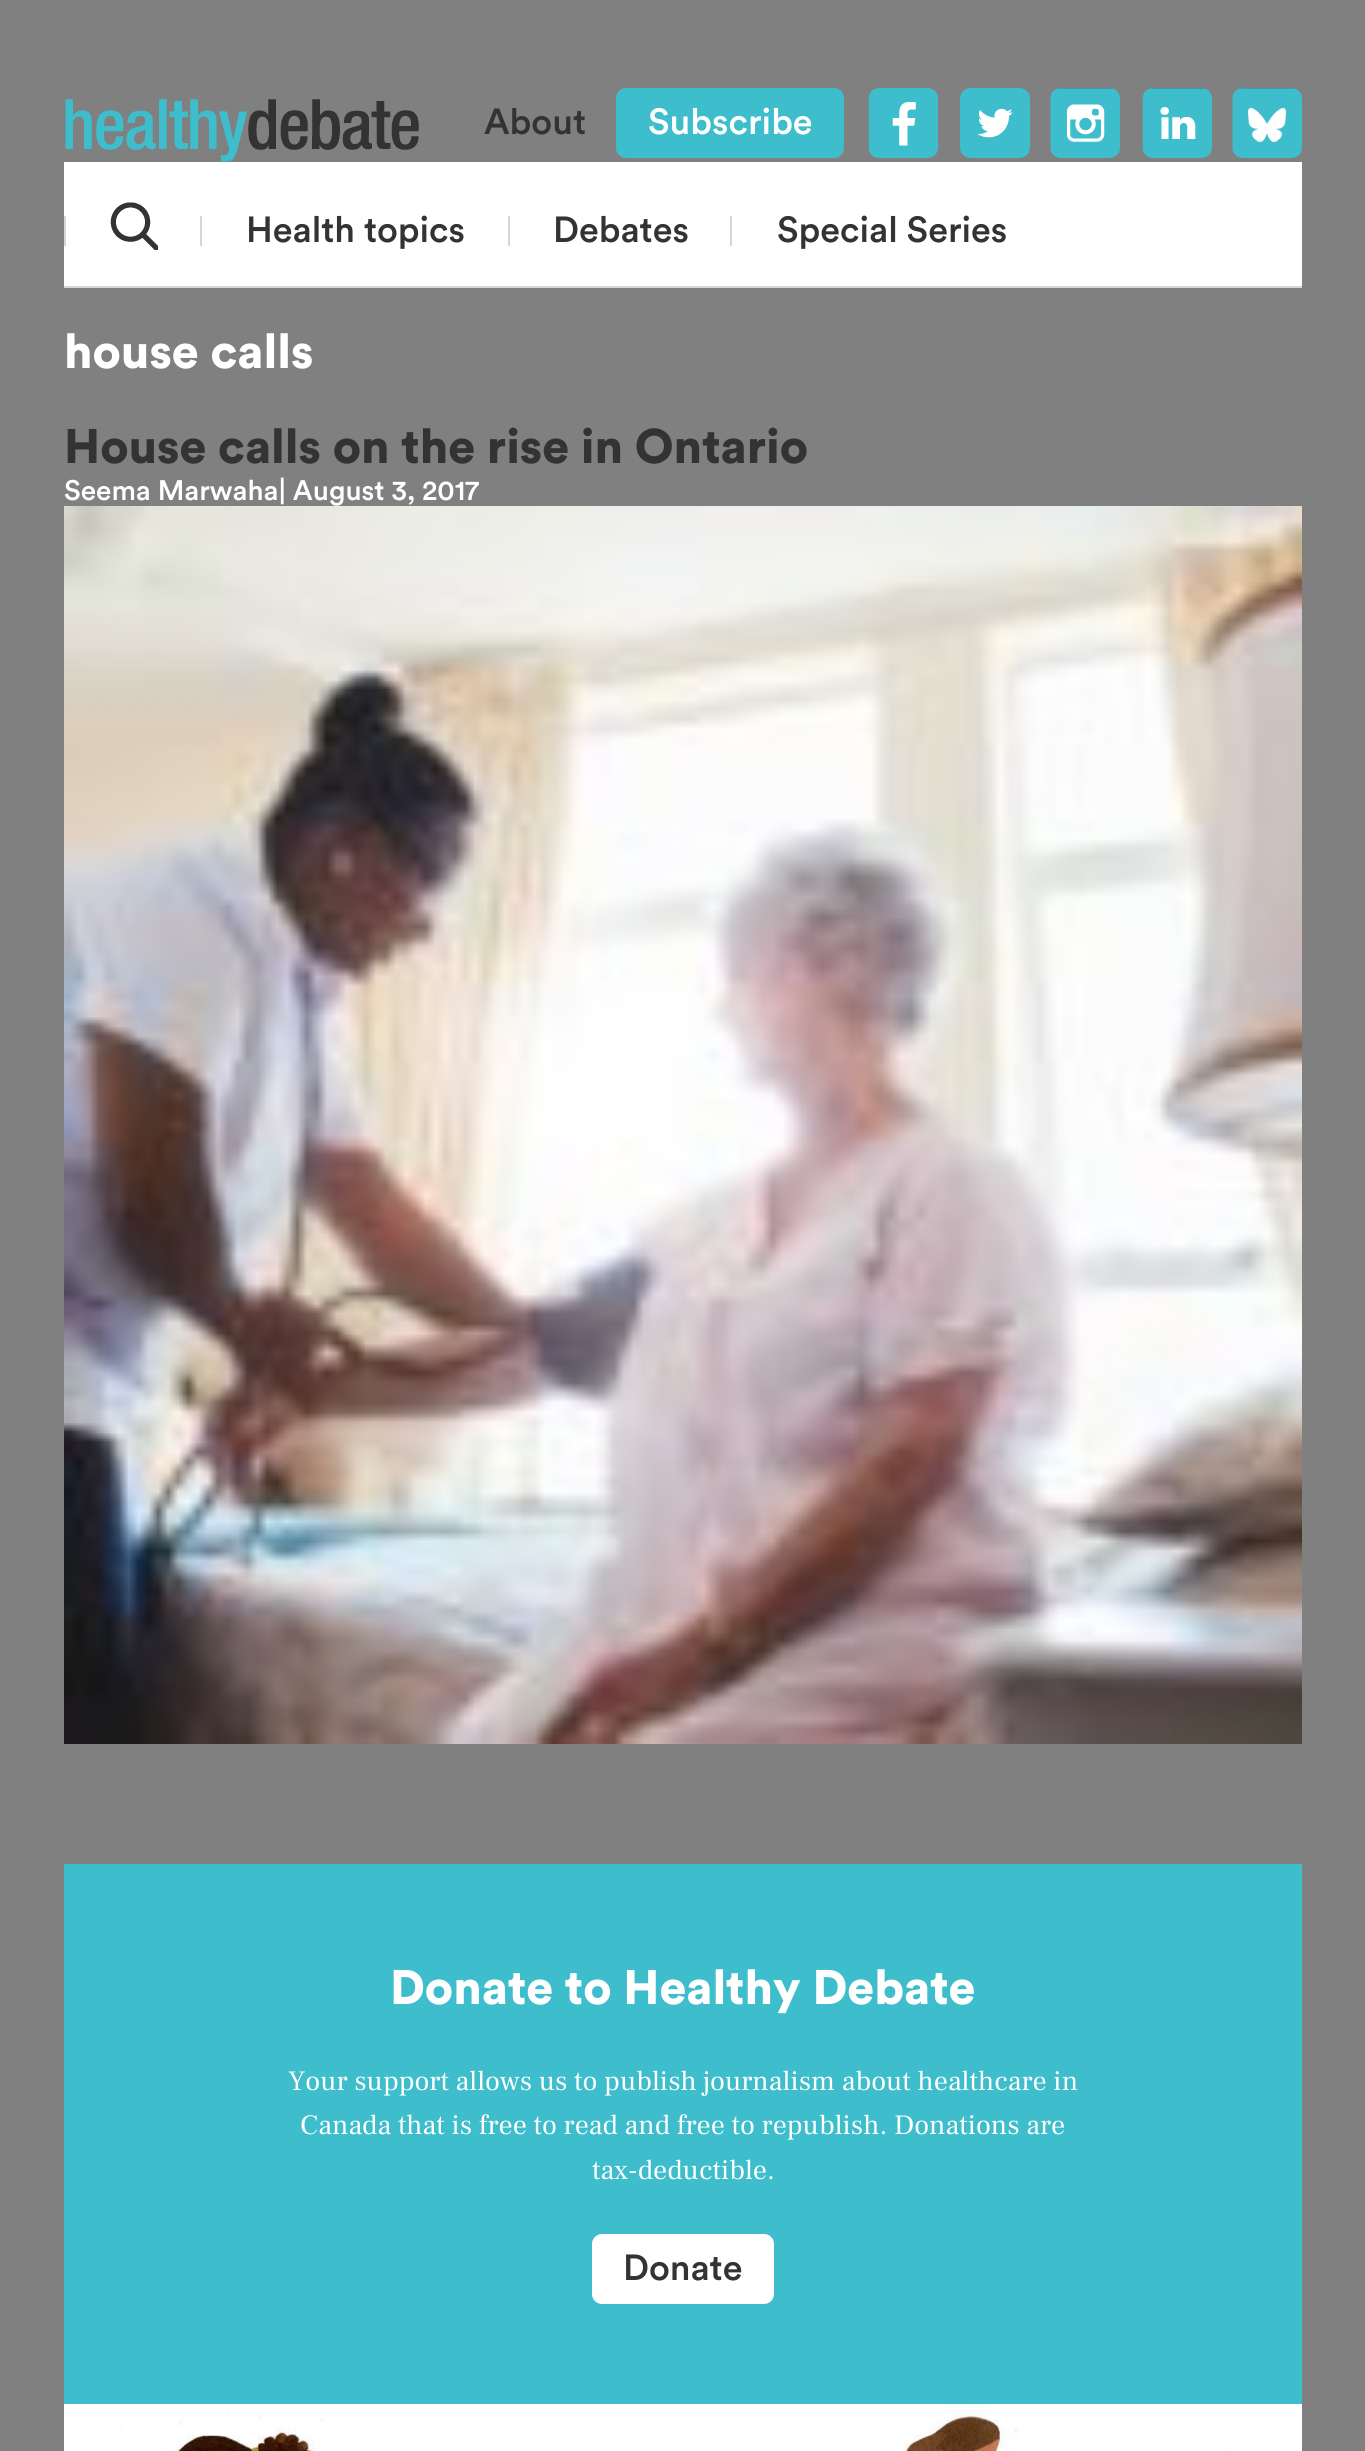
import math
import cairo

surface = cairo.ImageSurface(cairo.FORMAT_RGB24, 1365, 2451)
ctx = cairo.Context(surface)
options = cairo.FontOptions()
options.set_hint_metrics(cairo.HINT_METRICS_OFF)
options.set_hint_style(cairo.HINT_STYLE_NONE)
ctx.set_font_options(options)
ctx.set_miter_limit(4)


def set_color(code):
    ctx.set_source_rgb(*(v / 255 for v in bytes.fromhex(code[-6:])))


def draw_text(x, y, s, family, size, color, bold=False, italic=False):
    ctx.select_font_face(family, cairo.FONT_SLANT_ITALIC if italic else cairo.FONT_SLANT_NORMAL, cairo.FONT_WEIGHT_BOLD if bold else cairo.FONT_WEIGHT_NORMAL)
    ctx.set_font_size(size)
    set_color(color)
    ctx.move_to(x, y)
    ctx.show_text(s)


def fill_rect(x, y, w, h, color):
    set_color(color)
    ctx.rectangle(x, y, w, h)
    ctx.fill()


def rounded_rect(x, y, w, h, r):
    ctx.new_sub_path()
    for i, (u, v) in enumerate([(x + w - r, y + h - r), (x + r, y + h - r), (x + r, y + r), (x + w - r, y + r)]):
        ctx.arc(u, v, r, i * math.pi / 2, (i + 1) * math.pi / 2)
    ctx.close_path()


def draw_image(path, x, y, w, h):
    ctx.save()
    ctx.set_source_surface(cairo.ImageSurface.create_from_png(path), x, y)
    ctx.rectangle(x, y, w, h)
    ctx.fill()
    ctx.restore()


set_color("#808080")
ctx.paint()
draw_image("assets/img1.png", 65, 99, 354, 63)
draw_text(484, 134, "About", "Circular Medium", 36, "#333333")
set_color("#3ebecc")
rounded_rect(616, 88, 228, 70, 10)
ctx.fill()
draw_text(648, 134, "Subscribe", "Circular Medium", 36, "#ffffff")
draw_image("assets/img2.png", 868, 88, 70, 70)
draw_image("assets/img3.png", 960, 88, 70, 70)
draw_image("assets/img4.png", 1050, 88, 70, 70)
draw_image("assets/img5.png", 1142, 88, 70, 70)
draw_image("assets/img6.png", 1232, 88, 70, 70)
fill_rect(64, 162, 1238, 124, "#ffffff")
fill_rect(64, 216, 2, 30, "#d6d6d6")
draw_image("assets/img7.png", 110, 202, 48, 48)
fill_rect(200, 216, 2, 30, "#d6d6d6")
draw_text(246, 242, "Health topics", "Circular Medium", 36, "#333333")
fill_rect(508, 216, 2, 30, "#d6d6d6")
draw_text(553, 242, "Debates", "Circular Medium", 36, "#333333")
fill_rect(730, 216, 2, 30, "#d6d6d6")
draw_text(777, 242, "Special Series", "Circular Medium", 36, "#333333")
fill_rect(64, 286, 1238, 2, "#d6d6d6")
draw_text(64, 368, "house calls", "Circular Black", 48, "#ffffff")
draw_text(64, 463, "House calls on the rise in Ontario", "Circular Black", 48, "#333333")
draw_text(64, 500, "Seema Marwaha| August 3, 2017", "Circular Medium", 28, "#ffffff")
draw_image("assets/img8.png", 64, 506, 1238, 1238)
fill_rect(64, 1864, 1238, 540, "#3ebecc")
draw_text(390, 2004, "Donate to Healthy Debate", "Circular Black", 48, "#ffffff")
draw_text(288, 2090, "Your support allows us to publish journalism about healthcare in", "Frank Ruhl Libre", 28, "#ffffff")
draw_text(300, 2134, "Canada that is free to read and free to republish. Donations are", "Frank Ruhl Libre", 28, "#ffffff")
draw_text(592, 2179, "tax-deductible.", "Frank Ruhl Libre", 28, "#ffffff")
rounded_rect(592, 2234, 182, 70, 10)
ctx.fill()
draw_text(623, 2280, "Donate", "Circular Medium", 36, "#333333")
draw_image("assets/img9.png", 64, 2404, 1238, 47)
surface.write_to_png("output.png")
